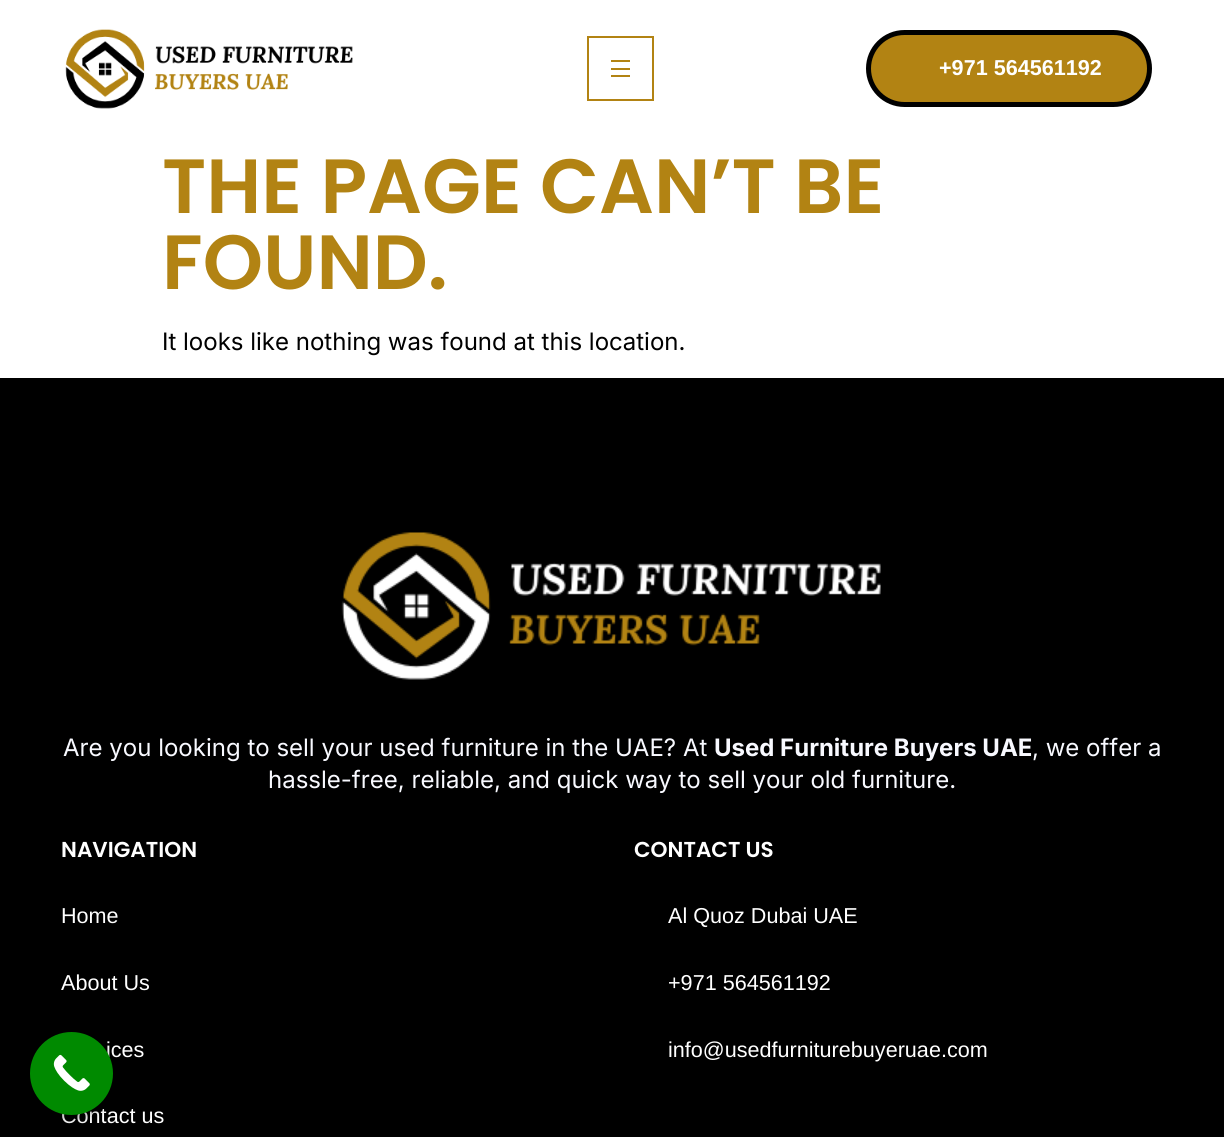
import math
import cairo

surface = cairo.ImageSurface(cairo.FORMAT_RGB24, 1224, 1137)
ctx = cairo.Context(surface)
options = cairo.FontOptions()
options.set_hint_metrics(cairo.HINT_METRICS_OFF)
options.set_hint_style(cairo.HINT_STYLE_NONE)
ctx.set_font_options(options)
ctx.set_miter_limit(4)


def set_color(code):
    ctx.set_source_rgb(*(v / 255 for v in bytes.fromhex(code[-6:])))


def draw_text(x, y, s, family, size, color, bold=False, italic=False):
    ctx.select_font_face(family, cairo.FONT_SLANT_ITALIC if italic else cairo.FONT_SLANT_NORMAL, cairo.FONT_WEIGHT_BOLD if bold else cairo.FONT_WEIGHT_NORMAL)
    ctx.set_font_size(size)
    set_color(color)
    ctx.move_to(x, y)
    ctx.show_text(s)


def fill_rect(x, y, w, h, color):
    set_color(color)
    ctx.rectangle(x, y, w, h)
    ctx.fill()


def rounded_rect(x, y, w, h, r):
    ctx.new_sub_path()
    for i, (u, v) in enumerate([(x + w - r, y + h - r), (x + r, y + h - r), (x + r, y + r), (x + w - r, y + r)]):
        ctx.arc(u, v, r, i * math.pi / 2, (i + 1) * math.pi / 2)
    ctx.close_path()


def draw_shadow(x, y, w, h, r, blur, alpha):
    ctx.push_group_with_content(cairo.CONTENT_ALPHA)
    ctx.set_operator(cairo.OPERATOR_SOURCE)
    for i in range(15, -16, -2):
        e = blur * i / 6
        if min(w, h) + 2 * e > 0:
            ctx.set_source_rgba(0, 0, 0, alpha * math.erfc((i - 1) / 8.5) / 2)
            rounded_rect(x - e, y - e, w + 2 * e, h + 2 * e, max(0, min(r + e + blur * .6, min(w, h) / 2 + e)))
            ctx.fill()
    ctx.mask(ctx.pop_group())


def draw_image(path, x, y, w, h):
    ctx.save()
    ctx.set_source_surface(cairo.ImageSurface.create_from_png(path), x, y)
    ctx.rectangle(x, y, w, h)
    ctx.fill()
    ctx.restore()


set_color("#ffffff")
ctx.paint()
draw_image("assets/img1.png", 65, 29, 288, 80)
ctx.rectangle(588, 37, 65, 63)
set_color("#b28313")
ctx.stroke()
fill_rect(611, 60, 19, 2, "#b28313")
fill_rect(611, 68, 19, 2, "#b28313")
fill_rect(611, 75, 19, 2, "#b28313")
rounded_rect(868.5, 32.5, 281, 72, 36)
ctx.fill_preserve()
set_color("#000000")
ctx.set_line_width(5)
ctx.stroke()
draw_text(939, 75, "+971 564561192", "Liberation Sans", 21.6, "#ffffff", bold=True)
draw_text(162, 213, "THE PAGE CAN’T BE", "Poppins SemiBold", 76.75, "#b28313")
draw_text(162, 289, "FOUND.", "Poppins SemiBold", 76.75, "#b28313")
draw_text(162, 350, "It looks like nothing was found at this location.", "Inter", 24, "#000000")
fill_rect(0, 378, 1224, 759, "#000000")
draw_image("assets/img2.png", 341, 532, 540, 148)
draw_text(63, 756, "Are you looking to sell your used furniture in the UAE? At", "Inter", 24, "#f8f9ff")
draw_text(714, 756, "Used Furniture Buyers UAE", "Inter", 24, "#f8f9ff", bold=True)
draw_text(1032, 756, ", we offer a", "Inter", 24, "#f8f9ff")
draw_text(268, 788, "hassle-free, reliable, and quick way to sell your old furniture.", "Inter", 24, "#f8f9ff")
draw_text(61, 857, "NAVIGATION", "Poppins SemiBold", 21.6, "#ffffff")
draw_text(61, 923, "Home", "Liberation Sans", 21.6, "#ffffff")
draw_text(61, 990, "About Us", "Liberation Sans", 21.6, "#ffffff")
draw_text(106, 1057, "ices", "Liberation Sans", 21.6, "#ffffff")
draw_text(61, 1123, "Contact us", "Liberation Sans", 21.6, "#ffffff")
draw_text(634, 857, "CONTACT US", "Poppins SemiBold", 21.6, "#ffffff")
draw_text(668, 923, "Al Quoz Dubai UAE", "Liberation Sans", 21.6, "#ffffff")
draw_text(668, 990, "+971 564561192", "Liberation Sans", 21.6, "#ffffff")
draw_text(668, 1057, "info@usedfurniturebuyeruae.com", "Liberation Sans", 21.6, "#ffffff")
set_color("#000000")
draw_shadow(30, 1037, 83, 82, 41, 4.5, 0.3)
set_color("#008a00")
ctx.arc(71.5, 1073.5, 41.5, 0, 2 * math.pi)
ctx.fill()
draw_image("assets/img3.png", 53, 1054, 37, 37)
surface.write_to_png("output.png")
